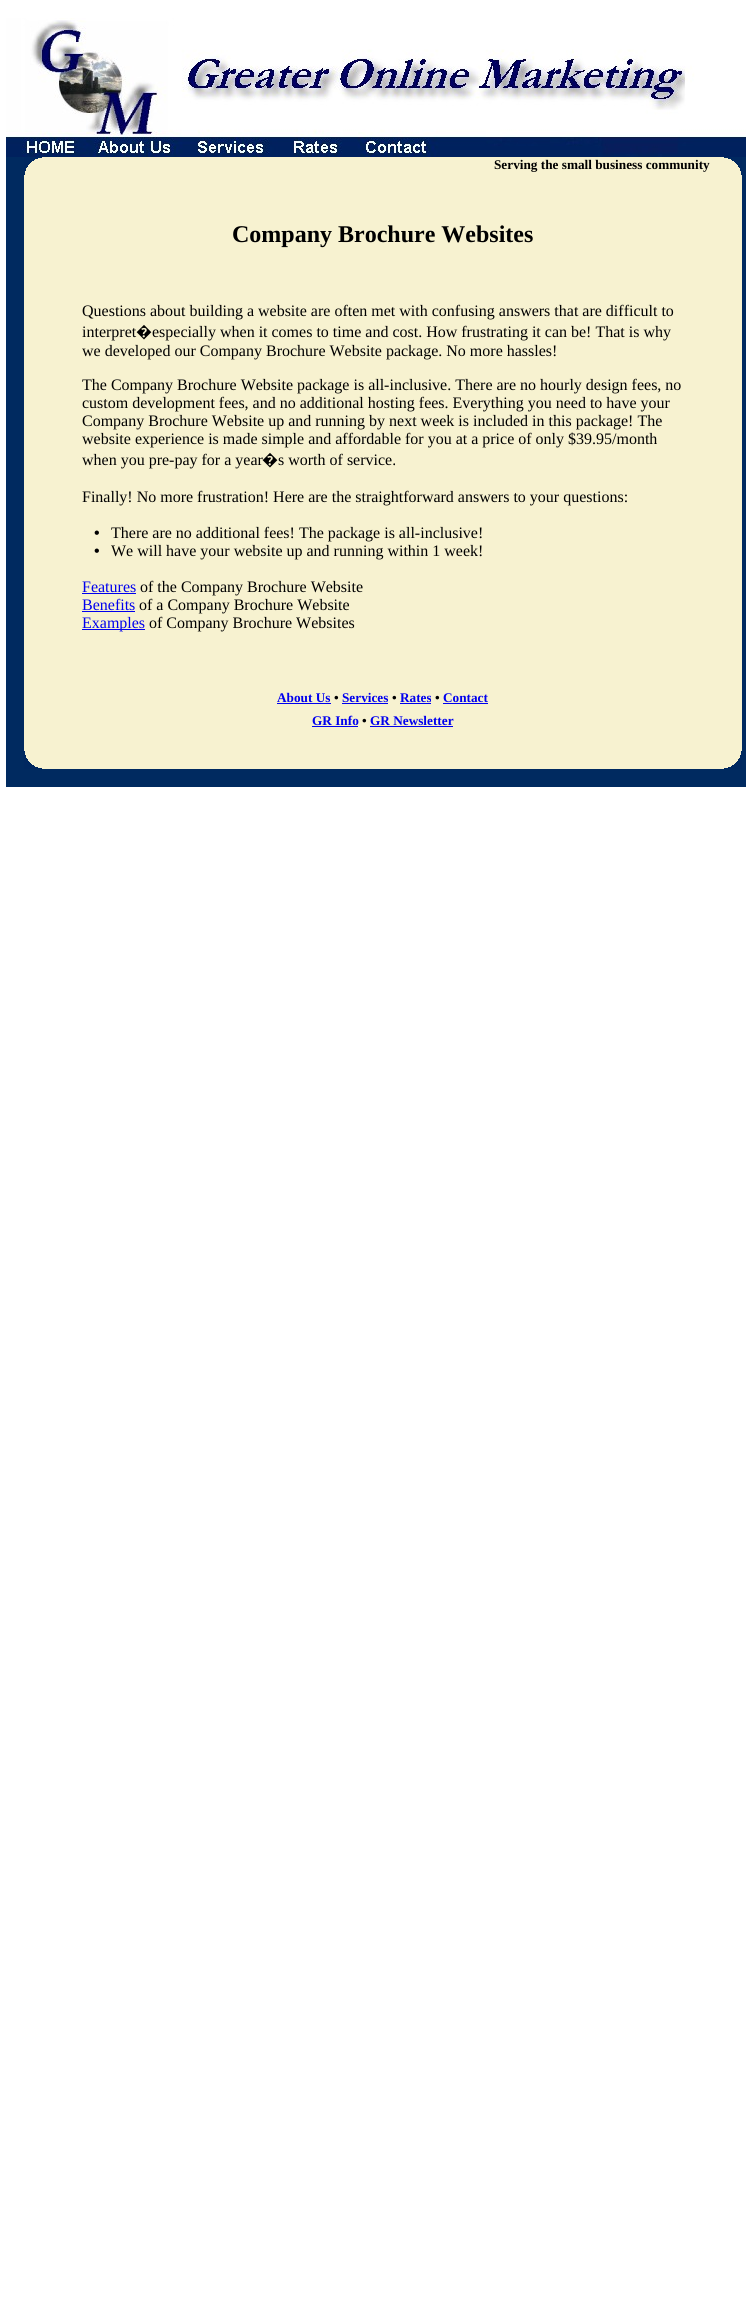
import math
import cairo

surface = cairo.ImageSurface(cairo.FORMAT_RGB24, 751, 2318)
ctx = cairo.Context(surface)
options = cairo.FontOptions()
options.set_hint_metrics(cairo.HINT_METRICS_OFF)
options.set_hint_style(cairo.HINT_STYLE_NONE)
ctx.set_font_options(options)
ctx.set_miter_limit(4)


def set_color(code):
    ctx.set_source_rgb(*(v / 255 for v in bytes.fromhex(code[-6:])))


def draw_text(x, y, s, family, size, color, bold=False, italic=False):
    ctx.select_font_face(family, cairo.FONT_SLANT_ITALIC if italic else cairo.FONT_SLANT_NORMAL, cairo.FONT_WEIGHT_BOLD if bold else cairo.FONT_WEIGHT_NORMAL)
    ctx.set_font_size(size)
    set_color(color)
    ctx.move_to(x, y)
    ctx.show_text(s)


def fill_rect(x, y, w, h, color):
    set_color(color)
    ctx.rectangle(x, y, w, h)
    ctx.fill()


def draw_image(path, x, y, w, h):
    ctx.save()
    ctx.set_source_surface(cairo.ImageSurface.create_from_png(path), x, y)
    ctx.rectangle(x, y, w, h)
    ctx.fill()
    ctx.restore()


set_color("#ffffff")
ctx.paint()
draw_image("assets/img1.png", 6, 18, 740, 139)
fill_rect(6, 157, 18, 612, "#002a60")
fill_rect(24, 158, 18, 593, "#f7f2d0")
draw_image("assets/img2.png", 24, 157, 18, 18)
fill_rect(42, 157, 682, 612, "#f7f2d0")
draw_text(494, 169, "Serving the small business community", "Liberation Serif", 13.25, "#000000", bold=True)
fill_rect(724, 158, 18, 593, "#f7f2d0")
draw_image("assets/img3.png", 724, 157, 18, 18)
fill_rect(742, 157, 4, 612, "#002a60")
draw_text(232, 242, "Company Brochure Websites", "Liberation Serif", 24, "#000000", bold=True)
draw_text(82, 316, "Questions about building a website are often met with confusing answers that are difficult to", "Liberation Serif", 16, "#000000")
draw_text(82, 337, "interpret", "Liberation Serif", 16, "#000000")
draw_text(136, 337, "�", "Noto Sans", 16, "#000000")
draw_text(152, 337, "especially when it comes to time and cost. How frustrating it can be! That is why", "Liberation Serif", 16, "#000000")
draw_text(82, 356, "we developed our Company Brochure Website package. No more hassles!", "Liberation Serif", 16, "#000000")
draw_text(82, 390, "The Company Brochure Website package is all-inclusive. There are no hourly design fees, no", "Liberation Serif", 16, "#000000")
draw_text(82, 408, "custom development fees, and no additional hosting fees. Everything you need to have your", "Liberation Serif", 16, "#000000")
draw_text(82, 426, "Company Brochure Website up and running by next week is included in this package! The", "Liberation Serif", 16, "#000000")
draw_text(82, 444, "website experience is made simple and affordable for you at a price of only $39.95/month", "Liberation Serif", 16, "#000000")
draw_text(82, 465, "when you pre-pay for a year", "Liberation Serif", 16, "#000000")
draw_text(262, 465, "�", "Noto Sans", 16, "#000000")
draw_text(278, 465, "s worth of service.", "Liberation Serif", 16, "#000000")
draw_text(82, 502, "Finally! No more frustration! Here are the straightforward answers to your questions:", "Liberation Serif", 16, "#000000")
draw_text(94, 538, "•", "Liberation Serif", 16, "#000000", bold=True)
draw_text(111, 538, "There are no additional fees! The package is all-inclusive!", "Liberation Serif", 16, "#000000")
draw_text(94, 556, "•", "Liberation Serif", 16, "#000000", bold=True)
draw_text(111, 556, "We will have your website up and running within 1 week!", "Liberation Serif", 16, "#000000")
draw_text(82, 592, "Features", "Liberation Serif", 16, "#0000ee")
fill_rect(82, 593, 54, 1, "#0000ee")
draw_text(140, 592, "of the Company Brochure Website", "Liberation Serif", 16, "#000000")
draw_text(82, 610, "Benefits", "Liberation Serif", 16, "#0000ee")
fill_rect(82, 611, 53, 1, "#0000ee")
draw_text(139, 610, "of a Company Brochure Website", "Liberation Serif", 16, "#000000")
fill_rect(82, 629, 63, 1, "#0000ee")
draw_text(82, 628, "Examples", "Liberation Serif", 16, "#0000ee")
draw_text(149, 628, "of Company Brochure Websites", "Liberation Serif", 16, "#000000")
draw_text(277, 702, "About Us", "Liberation Serif", 13.25, "#0000ee", bold=True)
fill_rect(277, 703, 54, 1, "#0000ee")
draw_text(334, 702, "•", "Liberation Serif", 13.25, "#000000", bold=True)
draw_text(342, 702, "Services", "Liberation Serif", 13.25, "#0000ee", bold=True)
fill_rect(342, 703, 46, 1, "#0000ee")
draw_text(392, 702, "•", "Liberation Serif", 13.25, "#000000", bold=True)
draw_text(400, 702, "Rates", "Liberation Serif", 13.25, "#0000ee", bold=True)
fill_rect(400, 703, 31, 1, "#0000ee")
draw_text(435, 702, "•", "Liberation Serif", 13.25, "#000000", bold=True)
draw_text(443, 702, "Contact", "Liberation Serif", 13.25, "#0000ee", bold=True)
fill_rect(443, 703, 45, 1, "#0000ee")
draw_text(312, 725, "GR Info", "Liberation Serif", 13.25, "#0000ee", bold=True)
fill_rect(312, 726, 46, 1, "#0000ee")
draw_text(362, 725, "•", "Liberation Serif", 13.25, "#000000", bold=True)
draw_text(370, 725, "GR Newsletter", "Liberation Serif", 13.25, "#0000ee", bold=True)
fill_rect(370, 726, 83, 1, "#0000ee")
fill_rect(25, 751, 17, 17, "#f7f2d0")
draw_image("assets/img4.png", 24, 751, 18, 18)
fill_rect(724, 751, 17, 17, "#f7f2d0")
draw_image("assets/img5.png", 724, 751, 18, 18)
fill_rect(6, 769, 740, 18, "#002a60")
surface.write_to_png("output.png")
